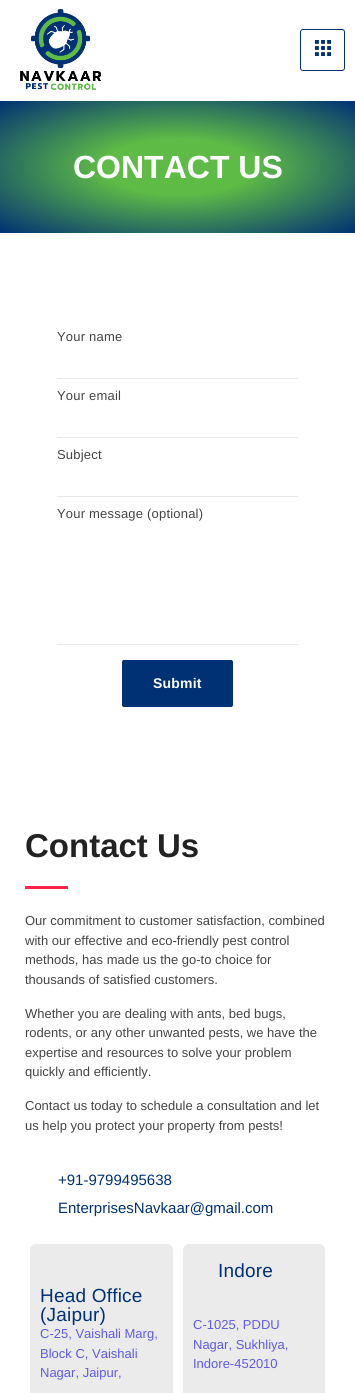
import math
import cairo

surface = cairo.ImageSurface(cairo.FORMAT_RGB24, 355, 1393)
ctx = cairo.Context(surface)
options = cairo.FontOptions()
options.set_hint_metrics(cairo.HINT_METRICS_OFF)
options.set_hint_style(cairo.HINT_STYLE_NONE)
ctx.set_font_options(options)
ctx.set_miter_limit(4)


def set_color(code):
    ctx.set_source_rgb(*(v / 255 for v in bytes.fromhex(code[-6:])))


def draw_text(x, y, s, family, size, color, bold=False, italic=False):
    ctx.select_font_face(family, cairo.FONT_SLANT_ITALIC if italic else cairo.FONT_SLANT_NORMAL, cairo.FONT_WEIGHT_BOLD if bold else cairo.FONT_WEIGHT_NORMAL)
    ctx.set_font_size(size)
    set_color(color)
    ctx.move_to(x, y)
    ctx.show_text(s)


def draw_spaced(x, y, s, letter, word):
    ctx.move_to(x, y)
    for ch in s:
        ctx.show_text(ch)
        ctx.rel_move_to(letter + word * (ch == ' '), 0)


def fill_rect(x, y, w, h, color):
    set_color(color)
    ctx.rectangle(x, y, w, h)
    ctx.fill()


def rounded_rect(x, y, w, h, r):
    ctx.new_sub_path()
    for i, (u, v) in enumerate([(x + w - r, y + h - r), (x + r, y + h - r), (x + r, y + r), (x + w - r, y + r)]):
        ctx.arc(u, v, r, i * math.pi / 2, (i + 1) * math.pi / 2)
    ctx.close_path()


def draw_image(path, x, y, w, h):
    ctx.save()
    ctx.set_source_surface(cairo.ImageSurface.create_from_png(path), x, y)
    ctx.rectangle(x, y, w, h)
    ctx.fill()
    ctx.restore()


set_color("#ffffff")
ctx.paint()
draw_image("assets/img1.png", 20, 9, 81, 81)
rounded_rect(300.5, 29.5, 44, 41, 2.5)
set_color("#003174")
ctx.set_line_width(1)
ctx.stroke()
draw_image("assets/img2.png", 315, 40, 16, 16)
gradient = cairo.RadialGradient(0, 0, 0, 0, 0, 1)
gradient.set_matrix(cairo.Matrix(1 / 251, 0, 0, 1 / 93, -1 * 178 / 251, -1 * 167 / 93))
gradient.add_color_stop_rgba(0.3, 0.369, 0.733, 0.275, 1)
gradient.add_color_stop_rgba(1, 0, 0.192, 0.455, 1)
ctx.set_source(gradient)
ctx.rectangle(0, 101, 355, 132)
ctx.fill()
draw_text(73, 178, "CONTACT US", "Liberation Sans", 32, "#ffffff", bold=True)
ctx.select_font_face("Liberation Sans")
ctx.set_font_size(13)
set_color("#444444")
draw_spaced(57, 341, "Your name", 0.2, 0)
fill_rect(57, 378, 241, 1, "#e8e8e8")
set_color("#444444")
draw_spaced(57, 400, "Your email", 0.2, 0)
fill_rect(57, 437, 241, 1, "#e8e8e8")
set_color("#444444")
draw_spaced(57, 459, "Subject", 0.2, 0)
fill_rect(57, 496, 241, 1, "#e8e8e8")
set_color("#444444")
draw_spaced(57, 518, "Your message (optional)", 0.2, 0)
fill_rect(57, 644, 241, 1, "#e8e8e8")
set_color("#003174")
rounded_rect(122.5, 660.5, 110, 46, 1.5)
ctx.fill_preserve()
ctx.stroke()
ctx.select_font_face("Liberation Sans", cairo.FONT_SLANT_NORMAL, cairo.FONT_WEIGHT_BOLD)
ctx.set_font_size(14)
set_color("#ffffff")
draw_spaced(153, 688, "Submit", 0.2, 0)
draw_text(25, 857, "Contact Us", "Liberation Sans", 33, "#222222", bold=True)
fill_rect(25, 886, 43, 3, "#ff224d")
draw_text(25, 925, "Our commitment to customer satisfaction, combined", "Liberation Sans", 13, "#444444")
draw_text(25, 945, "with our effective and eco-friendly pest control", "Liberation Sans", 13, "#444444")
draw_text(25, 964, "methods, has made us the go-to choice for", "Liberation Sans", 13, "#444444")
draw_text(25, 984, "thousands of satisfied customers.", "Liberation Sans", 13, "#444444")
draw_text(25, 1018, "Whether you are dealing with ants, bed bugs,", "Liberation Sans", 13, "#444444")
draw_text(25, 1037, "rodents, or any other unwanted pests, we have the", "Liberation Sans", 13, "#444444")
draw_text(25, 1057, "expertise and resources to solve your problem", "Liberation Sans", 13, "#444444")
draw_text(25, 1076, "quickly and efficiently.", "Liberation Sans", 13, "#444444")
draw_text(25, 1110, "Contact us today to schedule a consultation and let", "Liberation Sans", 13, "#444444")
draw_text(25, 1130, "us help you protect your property from pests!", "Liberation Sans", 13, "#444444")
draw_text(58, 1185, "+91-9799495638", "Liberation Sans", 15, "#003174")
draw_text(58, 1213, "EnterprisesNavkaar@gmail.com", "Liberation Sans", 15, "#003174")
set_color("#ebebeb")
rounded_rect(30, 1244, 143, 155, 6)
ctx.fill()
ctx.set_font_size(19)
set_color("#003174")
draw_spaced(40, 1302, "Head Office", 0.2, 0)
draw_spaced(40, 1321, "(Jaipur)", 0.2, 0)
draw_text(40, 1338, "C-25, Vaishali Marg,", "Liberation Sans", 13, "#605be5")
draw_text(40, 1358, "Block C, Vaishali", "Liberation Sans", 13, "#605be5")
draw_text(40, 1377, "Nagar, Jaipur,", "Liberation Sans", 13, "#605be5")
set_color("#ebebeb")
rounded_rect(183, 1244, 142, 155, 6)
ctx.fill()
ctx.set_font_size(19)
set_color("#003174")
draw_spaced(218, 1277, "Indore", 0.2, 0)
draw_text(193, 1329, "C-1025, PDDU", "Liberation Sans", 13, "#605be5")
draw_text(193, 1349, "Nagar, Sukhliya,", "Liberation Sans", 13, "#605be5")
draw_text(193, 1368, "Indore-452010", "Liberation Sans", 13, "#605be5")
surface.write_to_png("output.png")
